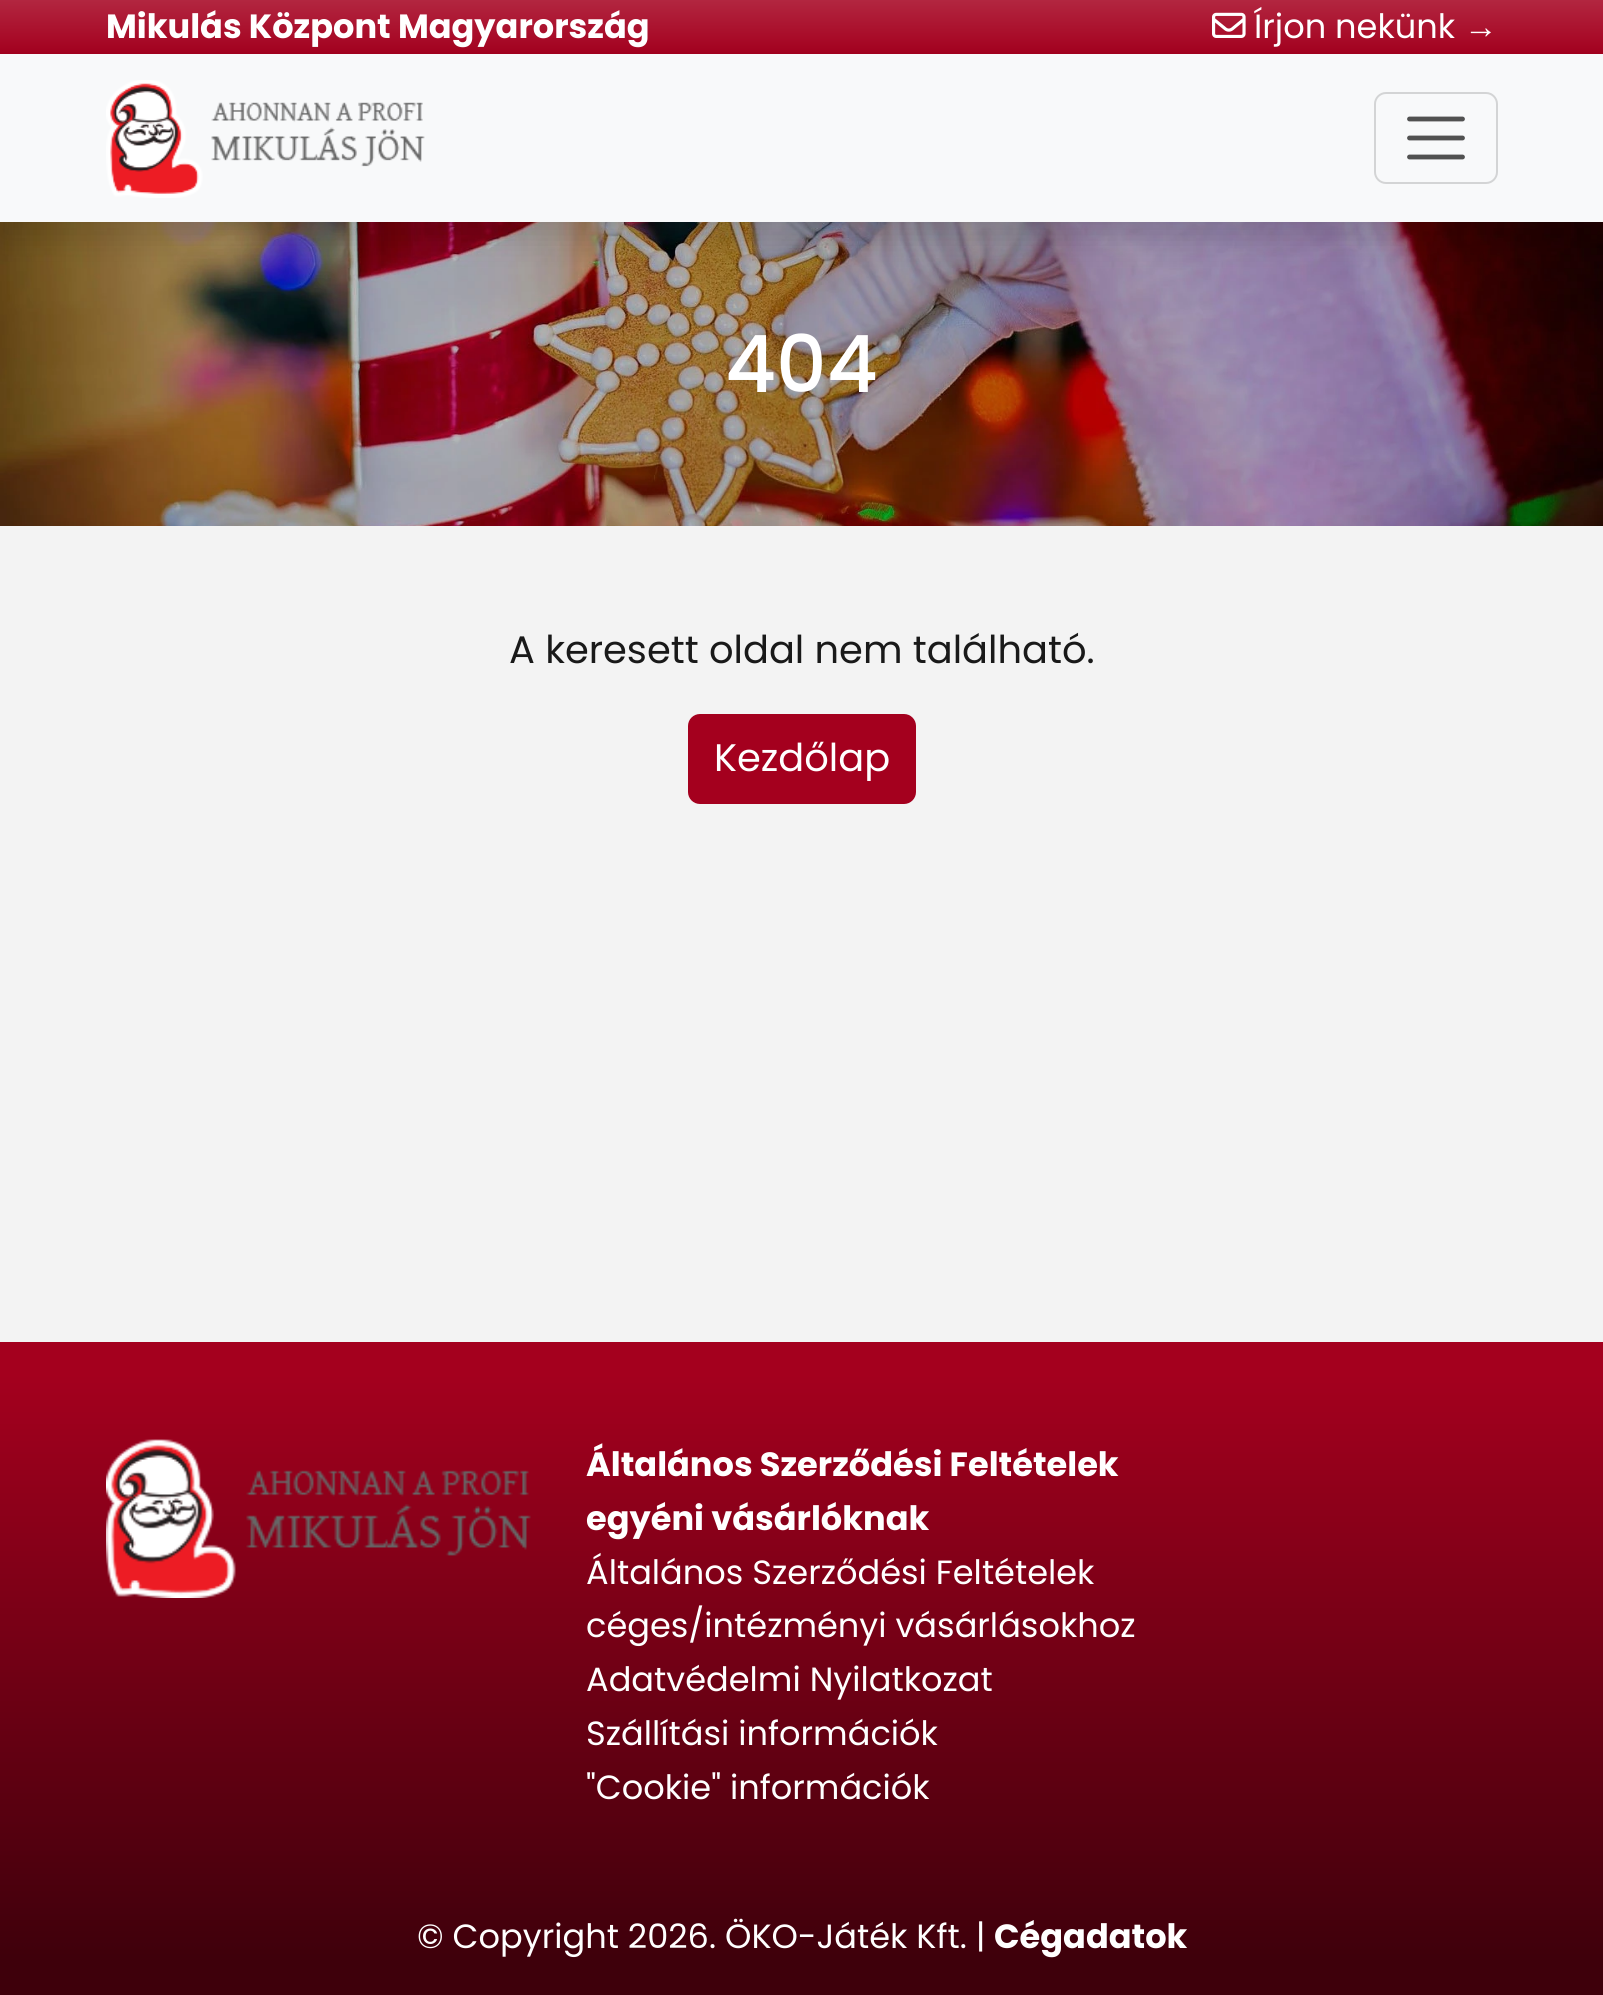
import math
import cairo

surface = cairo.ImageSurface(cairo.FORMAT_RGB24, 1603, 1995)
ctx = cairo.Context(surface)
options = cairo.FontOptions()
options.set_hint_metrics(cairo.HINT_METRICS_OFF)
options.set_hint_style(cairo.HINT_STYLE_NONE)
ctx.set_font_options(options)
ctx.set_miter_limit(4)


def set_color(code):
    ctx.set_source_rgb(*(v / 255 for v in bytes.fromhex(code[-6:])))


def draw_text(x, y, s, family, size, color, bold=False, italic=False):
    ctx.select_font_face(family, cairo.FONT_SLANT_ITALIC if italic else cairo.FONT_SLANT_NORMAL, cairo.FONT_WEIGHT_BOLD if bold else cairo.FONT_WEIGHT_NORMAL)
    ctx.set_font_size(size)
    set_color(color)
    ctx.move_to(x, y)
    ctx.show_text(s)


def fill_rect(x, y, w, h, color):
    set_color(color)
    ctx.rectangle(x, y, w, h)
    ctx.fill()


def rounded_rect(x, y, w, h, r):
    ctx.new_sub_path()
    for i, (u, v) in enumerate([(x + w - r, y + h - r), (x + r, y + h - r), (x + r, y + r), (x + w - r, y + r)]):
        ctx.arc(u, v, r, i * math.pi / 2, (i + 1) * math.pi / 2)
    ctx.close_path()


def draw_shadow(x, y, w, h, r, blur, alpha):
    ctx.push_group_with_content(cairo.CONTENT_ALPHA)
    ctx.set_operator(cairo.OPERATOR_SOURCE)
    for i in range(15, -16, -2):
        e = blur * i / 6
        if min(w, h) + 2 * e > 0:
            ctx.set_source_rgba(0, 0, 0, alpha * math.erfc((i - 1) / 8.5) / 2)
            rounded_rect(x - e, y - e, w + 2 * e, h + 2 * e, max(0, min(r + e + blur * .6, min(w, h) / 2 + e)))
            ctx.fill()
    ctx.mask(ctx.pop_group())


def draw_image(path, x, y, w, h):
    ctx.save()
    ctx.set_source_surface(cairo.ImageSurface.create_from_png(path), x, y)
    ctx.rectangle(x, y, w, h)
    ctx.fill()
    ctx.restore()


set_color("#f3f3f3")
ctx.paint()
gradient = cairo.LinearGradient(802, 0, 802, 54)
gradient.add_color_stop_rgba(0, 0.698, 0.149, 0.251, 1)
gradient.add_color_stop_rgba(1, 0.643, 0, 0.118, 1)
ctx.set_source(gradient)
ctx.rectangle(0, 0, 1603, 54)
ctx.fill()
draw_text(106, 38, "Mikulás Központ Magyarország", "Poppins", 33.6, "#ffffff", bold=True)
draw_image("assets/img1.png", 1212, 12, 34, 26)
draw_text(1254, 38, "Írjon nekünk", "Poppins", 33.6, "#ffffff")
draw_text(1464, 38, "→", "Liberation Sans", 33.6, "#ffffff")
draw_image("assets/img3.png", 0, 222, 1603, 304)
set_color("#000000")
draw_shadow(0, 70, 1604, 168, 0, 16, 0.15)
fill_rect(0, 54, 1603, 168, "#f8f9fa")
draw_image("assets/img2.png", 106, 80, 319, 118)
rounded_rect(1375, 93, 122, 90, 11)
set_color("#d3d4d5")
ctx.stroke()
ctx.new_path()
ctx.move_to(1409.5, 119)
ctx.line_to(1462.5, 119)
ctx.move_to(1409.5, 138)
ctx.line_to(1462.5, 138)
ctx.move_to(1409.5, 157)
ctx.line_to(1462.5, 157)
set_color("#515151")
ctx.set_line_width(4.8)
ctx.set_line_cap(cairo.LINE_CAP_ROUND)
ctx.stroke()
draw_text(725, 392, "404", "Poppins Medium", 79, "#ffffff")
draw_text(509, 663, "A keresett oldal nem található.", "Poppins", 38.4, "#191919")
set_color("#a4001e")
rounded_rect(689, 715, 226, 88, 11)
ctx.fill_preserve()
ctx.set_line_width(2)
ctx.set_line_cap(cairo.LINE_CAP_BUTT)
ctx.stroke()
draw_text(714, 771, "Kezdőlap", "Poppins", 38.4, "#ffffff")
gradient = cairo.LinearGradient(802, 1342, 802, 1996)
gradient.add_color_stop_rgba(0.05, 0.643, 0, 0.118, 1)
gradient.add_color_stop_rgba(0.95, 0.243, 0, 0.043, 1)
ctx.set_source(gradient)
ctx.rectangle(0, 1342, 1603, 653)
ctx.fill()
draw_image("assets/img4.png", 106, 1439, 425, 159)
draw_text(586, 1476, "Általános Szerződési Feltételek", "Poppins", 33.6, "#ffffff", bold=True)
draw_text(586, 1530, "egyéni vásárlóknak", "Poppins", 33.6, "#ffffff", bold=True)
draw_text(586, 1584, "Általános Szerződési Feltételek", "Poppins", 33.6, "#ffffff")
draw_text(586, 1637, "céges/intézményi vásárlásokhoz", "Poppins", 33.6, "#ffffff")
draw_text(586, 1691, "Adatvédelmi Nyilatkozat", "Poppins", 33.6, "#ffffff")
draw_text(586, 1745, "Szállítási információk", "Poppins", 33.6, "#ffffff")
draw_text(586, 1799, "\"Cookie\" információk", "Poppins", 33.6, "#ffffff")
draw_text(417, 1948, "© Copyright 2026. ÖKO-Játék Kft. |", "Poppins", 33.6, "#ffffff")
draw_text(994, 1948, "Cégadatok", "Poppins", 33.6, "#ffffff", bold=True)
surface.write_to_png("output.png")
